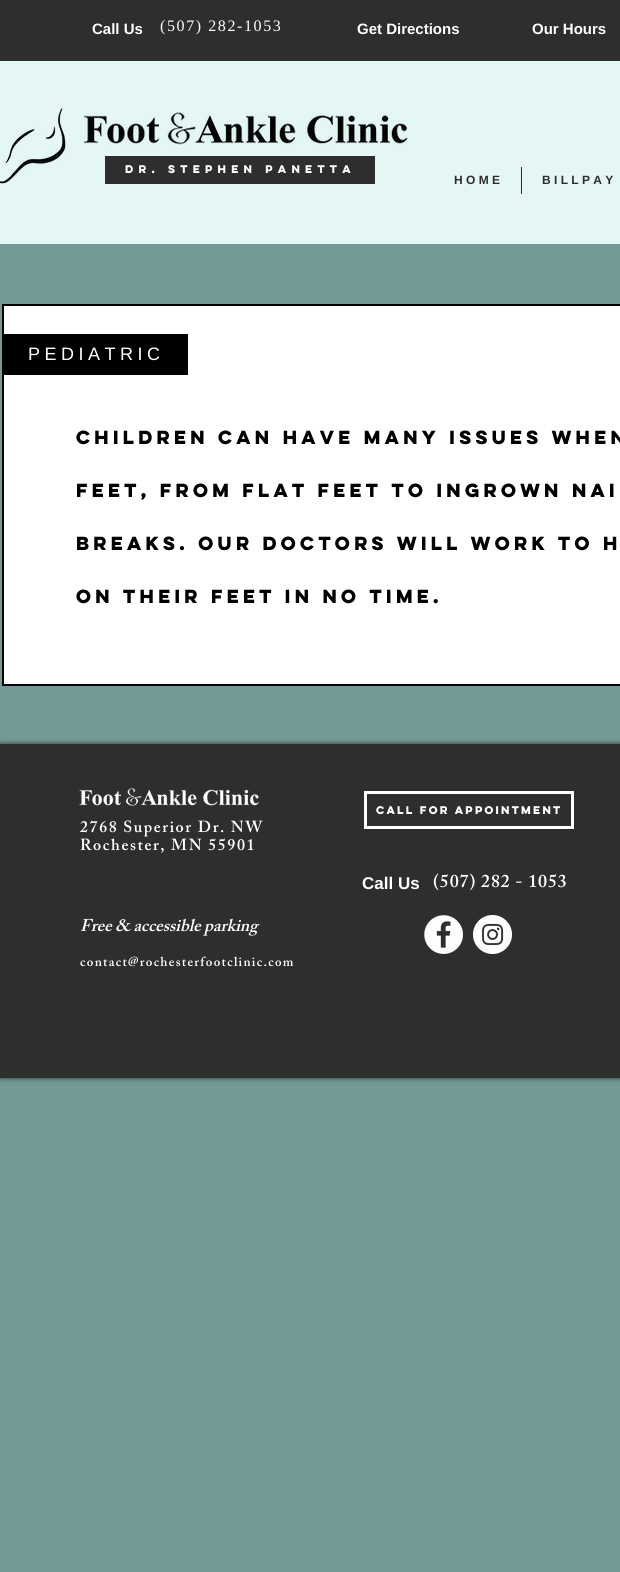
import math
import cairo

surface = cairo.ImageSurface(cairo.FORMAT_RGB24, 620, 1572)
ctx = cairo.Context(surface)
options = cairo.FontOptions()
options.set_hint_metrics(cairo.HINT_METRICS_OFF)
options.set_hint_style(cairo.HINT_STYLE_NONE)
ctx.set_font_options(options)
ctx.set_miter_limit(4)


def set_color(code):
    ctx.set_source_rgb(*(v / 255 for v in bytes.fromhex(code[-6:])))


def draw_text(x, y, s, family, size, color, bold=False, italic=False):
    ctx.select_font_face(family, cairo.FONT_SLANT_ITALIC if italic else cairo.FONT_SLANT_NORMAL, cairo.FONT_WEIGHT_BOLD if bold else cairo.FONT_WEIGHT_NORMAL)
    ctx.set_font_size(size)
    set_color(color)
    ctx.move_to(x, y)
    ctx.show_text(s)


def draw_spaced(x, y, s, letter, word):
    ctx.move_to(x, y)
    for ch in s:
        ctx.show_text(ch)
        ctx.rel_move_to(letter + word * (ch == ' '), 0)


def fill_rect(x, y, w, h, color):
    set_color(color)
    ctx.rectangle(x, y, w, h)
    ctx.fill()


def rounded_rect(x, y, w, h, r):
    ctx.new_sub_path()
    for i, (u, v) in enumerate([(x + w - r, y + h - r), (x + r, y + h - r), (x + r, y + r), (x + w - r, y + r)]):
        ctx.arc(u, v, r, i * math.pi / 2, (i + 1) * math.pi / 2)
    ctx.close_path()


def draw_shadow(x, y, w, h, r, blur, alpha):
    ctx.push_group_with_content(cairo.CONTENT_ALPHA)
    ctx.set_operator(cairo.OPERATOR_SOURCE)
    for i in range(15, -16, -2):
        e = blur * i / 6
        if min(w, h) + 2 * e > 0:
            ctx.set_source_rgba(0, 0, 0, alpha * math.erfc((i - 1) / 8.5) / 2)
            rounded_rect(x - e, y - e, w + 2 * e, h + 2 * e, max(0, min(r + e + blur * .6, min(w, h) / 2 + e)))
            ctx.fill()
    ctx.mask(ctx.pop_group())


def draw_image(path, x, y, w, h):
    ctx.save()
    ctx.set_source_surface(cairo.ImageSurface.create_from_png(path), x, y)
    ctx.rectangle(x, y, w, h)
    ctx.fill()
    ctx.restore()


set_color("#739a97")
ctx.paint()
fill_rect(0, 0, 620, 61, "#2f2e2e")
draw_text(92, 34, "Call Us", "Liberation Sans", 15, "#ffffff", bold=True)
ctx.select_font_face("Liberation Serif")
ctx.set_font_size(16)
draw_spaced(160, 31, "(507) 282-1053", 1.6, 0)
draw_text(357, 34, "Get Directions", "Liberation Sans", 15, "#ffffff", bold=True)
draw_text(532, 34, "Our Hours", "Liberation Sans", 15, "#ffffff", bold=True)
fill_rect(0, 61, 620, 183, "#e4f7f5")
draw_image("assets/img1.png", 0, 108, 66, 76)
draw_image("assets/img2.png", 83, 112, 325, 33)
fill_rect(105, 156, 270, 28, "#2f2e2e")
ctx.select_font_face("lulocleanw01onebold", cairo.FONT_SLANT_NORMAL, cairo.FONT_WEIGHT_BOLD)
ctx.set_font_size(10)
set_color("#ffffff")
draw_spaced(125, 173, "DR. STEPHEN PANETTA", 3, 0)
draw_text(454, 184, "H O M E", "Liberation Sans", 12, "#2f2e2e", bold=True)
fill_rect(521, 167, 1, 27, "#2f2e2e")
draw_text(542, 184, "B I L L P A Y", "Liberation Sans", 12, "#2f2e2e", bold=True)
fill_rect(4, 306, 616, 378, "#ffffff")
ctx.new_path()
ctx.move_to(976, 305)
ctx.line_to(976, 685)
ctx.line_to(3, 685)
ctx.line_to(3, 305)
ctx.close_path()
set_color("#000000")
ctx.stroke()
fill_rect(4, 334, 184, 41, "#000000")
ctx.select_font_face("Liberation Sans")
ctx.set_font_size(18)
set_color("#ffffff")
draw_spaced(28, 360, "PEDIATRIC", 4.5, 0)
ctx.select_font_face("lulocleanw01onebold", cairo.FONT_SLANT_NORMAL, cairo.FONT_WEIGHT_BOLD)
ctx.set_font_size(17)
set_color("#000000")
draw_spaced(76, 444, "Children can have many issues when", 0.5, 0)
draw_spaced(76, 497, "feet, from flat feet to ingrown nai", 0.5, 0)
draw_spaced(76, 550, "breaks. Our doctors will work to h", 0.5, 0)
draw_spaced(76, 603, "on their feet in no time.", 0.5, 0)
set_color("#000000")
draw_shadow(0, 744, 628, 334, 0, 2.5, 0.7)
fill_rect(0, 744, 620, 334, "#2f2e2e")
draw_image("assets/img3.png", 79, 788, 180, 18)
ctx.rectangle(365.5, 792.5, 207, 35)
set_color("#ffffff")
ctx.set_line_width(3)
ctx.stroke()
draw_text(376, 814, "CALL FOR APPOINTMENT", "lulocleanw01onebold", 10, "#ffffff", bold=True)
ctx.select_font_face("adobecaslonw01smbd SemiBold")
ctx.set_font_size(16)
draw_spaced(80, 832, "2768 Superior Dr. NW", 1.6, 0)
draw_spaced(80, 850, "Rochester, MN 55901", 1.6, 0)
draw_text(362, 889, "Call Us", "Liberation Sans", 17, "#ffffff", bold=True)
ctx.select_font_face("adobecaslonw01smbd SemiBold")
ctx.set_font_size(18)
draw_spaced(433, 887, "(507) 282 - 1053", 0.9, 0)
draw_text(80, 931, "Free & accessible parking", "adobecaslonw01smbd SemiBold", 17, "#ffffff", italic=True)
draw_image("assets/img4.png", 424, 915, 39, 39)
draw_image("assets/img5.png", 473, 915, 39, 39)
ctx.select_font_face("adobecaslonw01smbd SemiBold")
ctx.set_font_size(13)
draw_spaced(80, 966, "contact@rochesterfootclinic.com", 1.3, 0)
surface.write_to_png("output.png")
